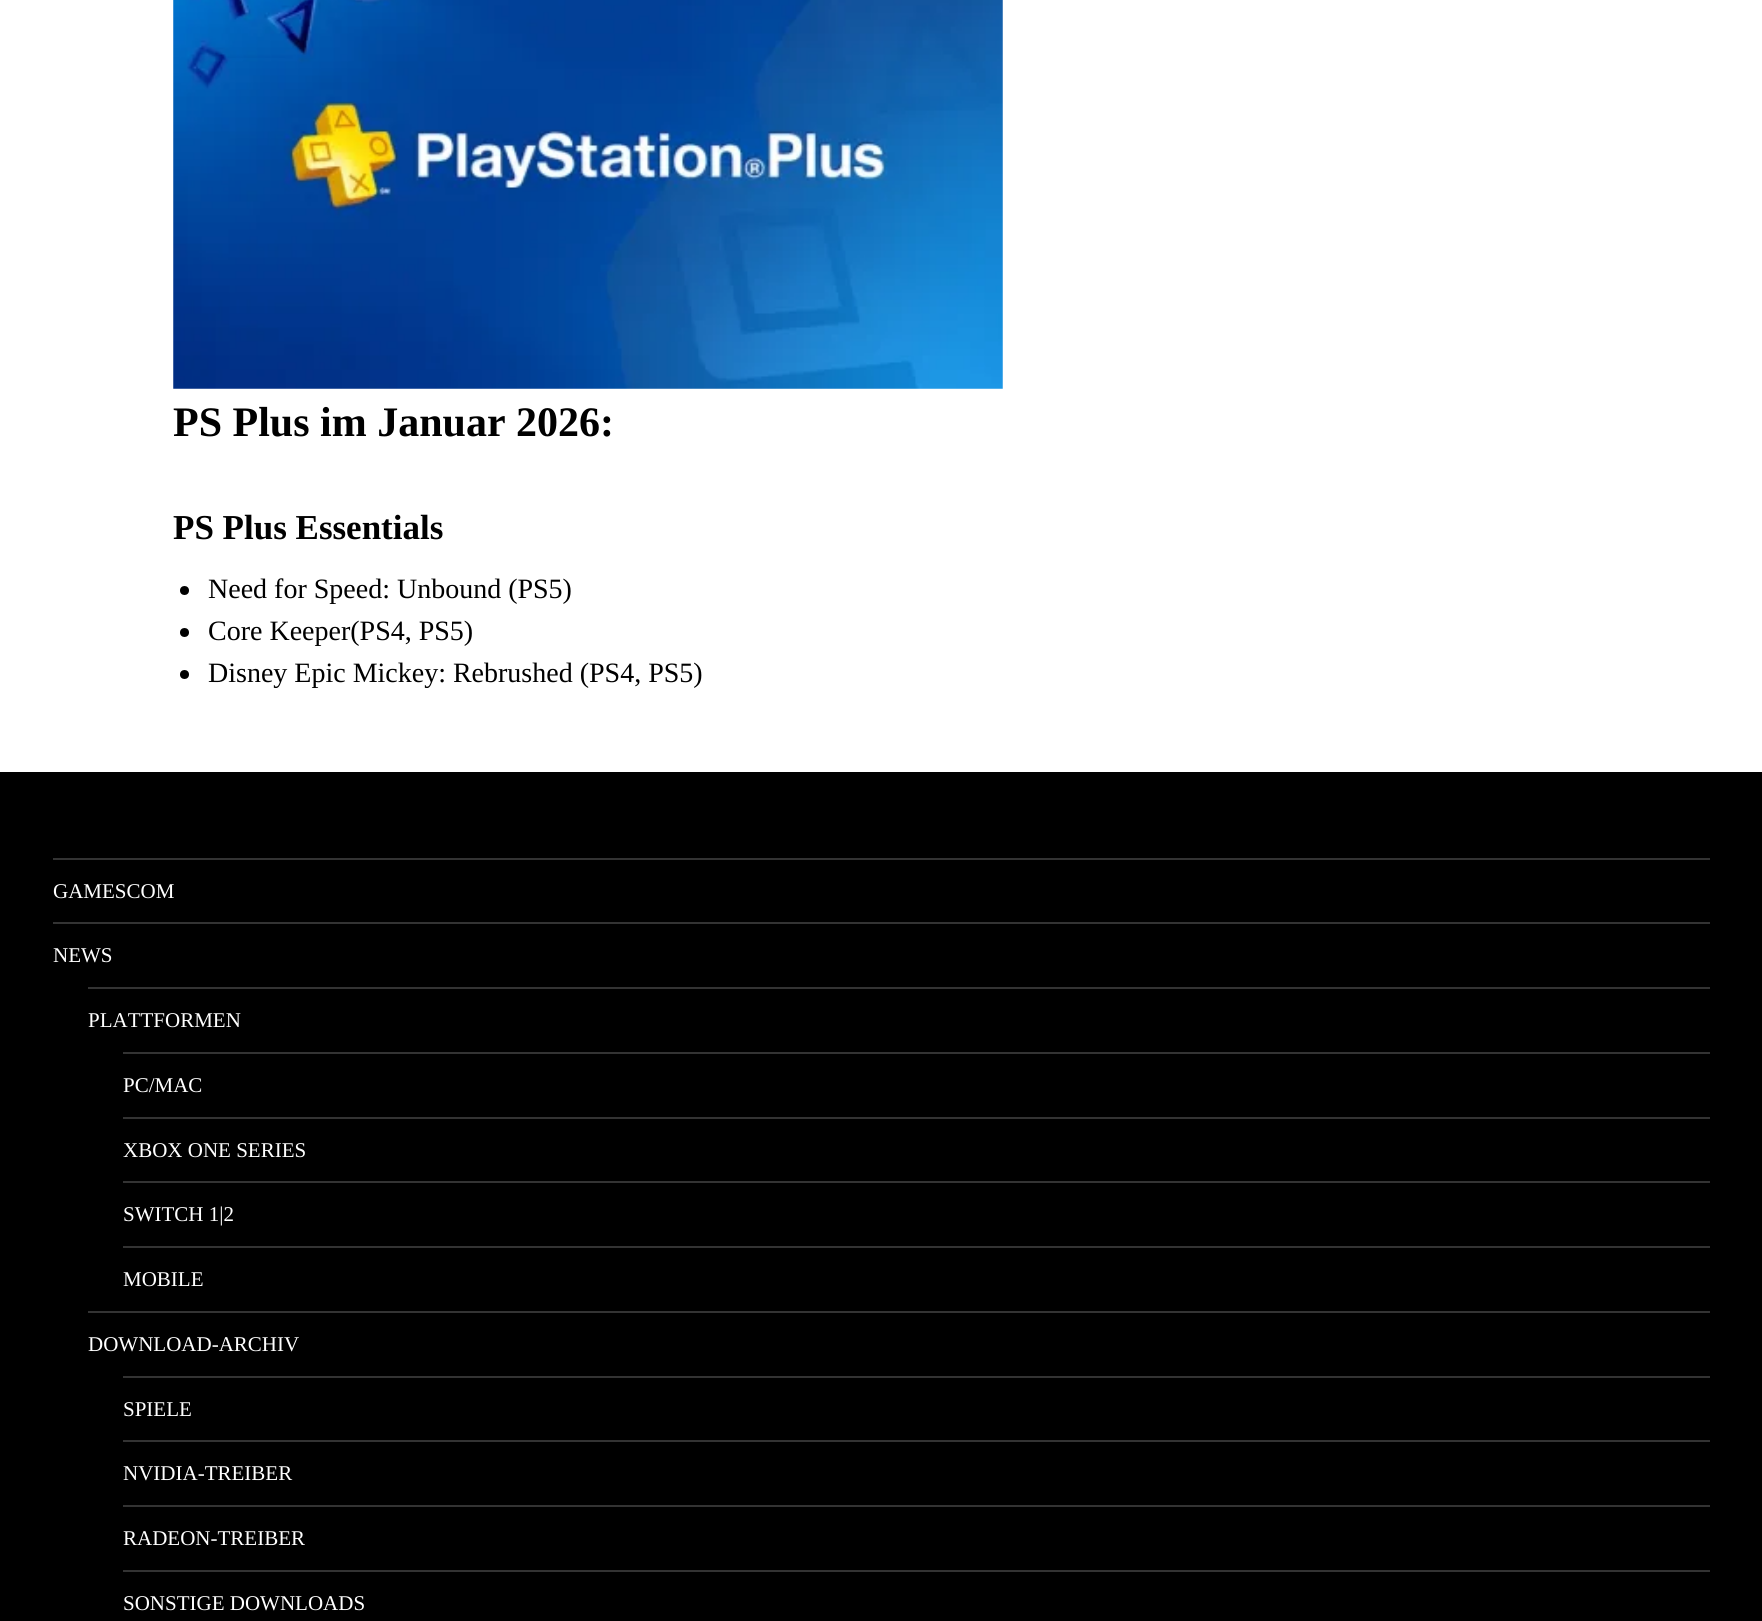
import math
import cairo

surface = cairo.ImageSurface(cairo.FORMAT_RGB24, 1762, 1621)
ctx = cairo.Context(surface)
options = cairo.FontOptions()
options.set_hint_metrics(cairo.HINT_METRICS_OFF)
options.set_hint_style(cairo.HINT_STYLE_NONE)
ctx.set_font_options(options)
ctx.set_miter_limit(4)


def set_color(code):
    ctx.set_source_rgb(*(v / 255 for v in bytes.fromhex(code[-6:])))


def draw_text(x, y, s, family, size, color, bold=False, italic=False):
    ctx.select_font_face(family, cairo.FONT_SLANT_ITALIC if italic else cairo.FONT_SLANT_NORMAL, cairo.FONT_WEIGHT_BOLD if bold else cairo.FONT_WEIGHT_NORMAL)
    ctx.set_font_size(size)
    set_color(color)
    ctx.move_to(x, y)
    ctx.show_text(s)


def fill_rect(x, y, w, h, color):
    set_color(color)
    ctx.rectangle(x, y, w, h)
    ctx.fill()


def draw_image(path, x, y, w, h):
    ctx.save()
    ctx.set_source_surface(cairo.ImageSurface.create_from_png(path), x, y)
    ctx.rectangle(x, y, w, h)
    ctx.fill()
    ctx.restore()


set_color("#ffffff")
ctx.paint()
draw_image("assets/img1.png", 173, 0, 830, 389)
draw_text(173, 436, "PS Plus im Januar 2026:", "Liberation Serif", 42, "#000000", bold=True)
draw_text(173, 539, "PS Plus Essentials", "Liberation Serif", 35, "#000000", bold=True)
ctx.new_path()
ctx.arc(184.5, 590.5, 4.5, 0, 2 * math.pi)
ctx.fill()
draw_text(208, 598, "Need for Speed: Unbound (PS5)", "Liberation Serif", 28, "#000000")
ctx.new_path()
ctx.arc(184.5, 632.5, 4.5, 0, 2 * math.pi)
ctx.fill()
draw_text(208, 640, "Core Keeper(PS4, PS5)", "Liberation Serif", 28, "#000000")
ctx.new_path()
ctx.arc(184.5, 674.5, 4.5, 0, 2 * math.pi)
ctx.fill()
draw_text(208, 682, "Disney Epic Mickey: Rebrushed (PS4, PS5)", "Liberation Serif", 28, "#000000")
fill_rect(0, 772, 1762, 849, "#000000")
fill_rect(53, 858, 1657, 2, "#333333")
draw_text(53, 898, "GAMESCOM", "Liberation Serif", 21, "#ffffff")
fill_rect(53, 922, 1657, 2, "#333333")
draw_text(53, 962, "NEWS", "Liberation Serif", 21, "#ffffff")
fill_rect(88, 987, 1622, 2, "#333333")
draw_text(88, 1027, "PLATTFORMEN", "Liberation Serif", 21, "#ffffff")
fill_rect(123, 1052, 1587, 2, "#333333")
draw_text(123, 1092, "PC/MAC", "Liberation Serif", 21, "#ffffff")
fill_rect(123, 1117, 1587, 2, "#333333")
draw_text(123, 1157, "XBOX ONE SERIES", "Liberation Serif", 21, "#ffffff")
fill_rect(123, 1181, 1587, 2, "#333333")
draw_text(123, 1221, "SWITCH 1|2", "Liberation Serif", 21, "#ffffff")
fill_rect(123, 1246, 1587, 2, "#333333")
draw_text(123, 1286, "MOBILE", "Liberation Serif", 21, "#ffffff")
fill_rect(88, 1311, 1622, 2, "#333333")
draw_text(88, 1351, "DOWNLOAD-ARCHIV", "Liberation Serif", 21, "#ffffff")
fill_rect(123, 1376, 1587, 2, "#333333")
draw_text(123, 1416, "SPIELE", "Liberation Serif", 21, "#ffffff")
fill_rect(123, 1440, 1587, 2, "#333333")
draw_text(123, 1480, "NVIDIA-TREIBER", "Liberation Serif", 21, "#ffffff")
fill_rect(123, 1505, 1587, 2, "#333333")
draw_text(123, 1545, "RADEON-TREIBER", "Liberation Serif", 21, "#ffffff")
fill_rect(123, 1570, 1587, 2, "#333333")
draw_text(123, 1610, "SONSTIGE DOWNLOADS", "Liberation Serif", 21, "#ffffff")
surface.write_to_png("output.png")
